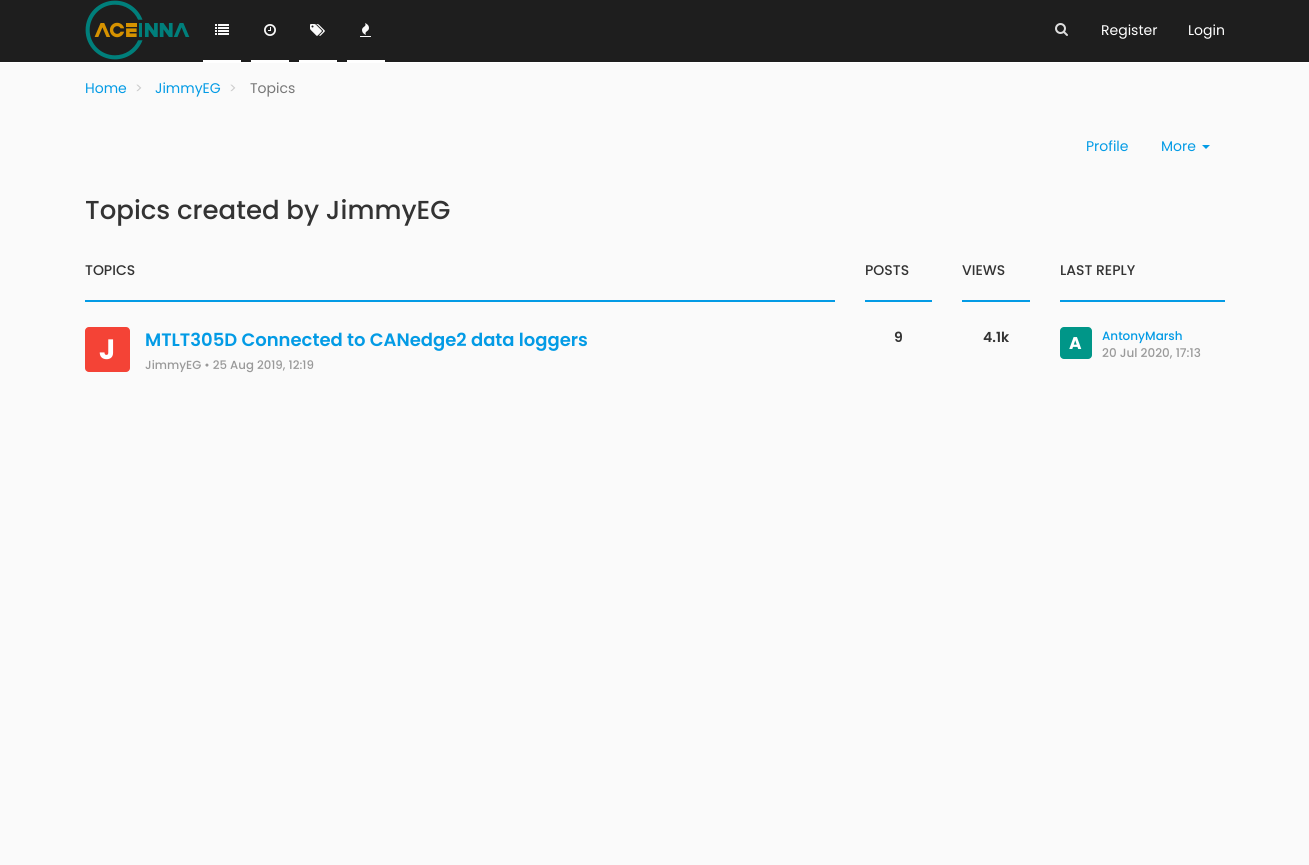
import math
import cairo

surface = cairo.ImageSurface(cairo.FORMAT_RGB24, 1309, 865)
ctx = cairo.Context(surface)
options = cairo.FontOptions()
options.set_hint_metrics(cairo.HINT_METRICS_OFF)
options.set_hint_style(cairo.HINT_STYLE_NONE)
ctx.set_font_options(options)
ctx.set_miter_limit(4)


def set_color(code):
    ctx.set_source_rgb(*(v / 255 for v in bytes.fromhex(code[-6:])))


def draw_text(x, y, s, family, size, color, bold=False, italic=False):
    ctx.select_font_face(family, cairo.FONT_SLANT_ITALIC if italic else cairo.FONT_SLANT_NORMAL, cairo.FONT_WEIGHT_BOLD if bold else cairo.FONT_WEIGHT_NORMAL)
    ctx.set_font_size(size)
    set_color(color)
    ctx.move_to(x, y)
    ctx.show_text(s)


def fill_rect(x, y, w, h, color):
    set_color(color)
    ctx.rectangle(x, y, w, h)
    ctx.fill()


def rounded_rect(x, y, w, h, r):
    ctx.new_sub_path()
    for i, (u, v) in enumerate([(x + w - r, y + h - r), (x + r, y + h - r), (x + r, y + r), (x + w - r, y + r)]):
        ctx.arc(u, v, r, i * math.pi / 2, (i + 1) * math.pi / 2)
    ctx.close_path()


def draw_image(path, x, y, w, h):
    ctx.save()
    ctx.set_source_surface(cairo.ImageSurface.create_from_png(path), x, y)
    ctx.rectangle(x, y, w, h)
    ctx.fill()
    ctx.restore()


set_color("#fafafa")
ctx.paint()
fill_rect(0, 0, 1309, 62, "#1e1e1e")
fill_rect(0, 62, 1309, 1, "#ffffff")
draw_image("assets/img1.png", 85, 0, 105, 60)
fill_rect(203, 60, 38, 2, "#ffffff")
draw_image("assets/img2.png", 215, 24, 14, 11)
fill_rect(251, 60, 38, 2, "#ffffff")
draw_image("assets/img3.png", 264, 24, 12, 12)
fill_rect(299, 60, 38, 2, "#ffffff")
draw_image("assets/img4.png", 310, 24, 15, 12)
fill_rect(347, 60, 38, 2, "#ffffff")
draw_image("assets/img5.png", 360, 23, 11, 14)
draw_image("assets/img6.png", 1055, 23, 13, 13)
draw_text(1101, 35, "Register", "Poppins", 14, "#ffffff")
draw_text(1188, 35, "Login", "Poppins", 14, "#ffffff")
draw_text(85, 93, "Home", "Poppins", 14, "#039be5")
draw_text(135, 93, ">", "Poppins", 14, "#cccccc")
draw_text(155, 93, "JimmyEG", "Poppins", 14, "#039be5")
draw_text(229, 93, ">", "Poppins", 14, "#cccccc")
draw_text(250, 93, "Topics", "Poppins", 14, "#777777")
draw_text(1086, 151, "Profile", "Poppins", 14, "#039be5")
draw_text(1161, 151, "More", "Poppins", 14, "#039be5")
ctx.new_path()
ctx.move_to(1202, 145)
ctx.line_to(1210, 145)
ctx.line_to(1206, 149)
ctx.close_path()
ctx.fill()
draw_text(85, 219, "Topics created by JimmyEG", "Poppins Medium", 26, "#333333")
fill_rect(85, 300, 750, 2, "#039be5")
draw_text(85, 275, "TOPICS", "Poppins Medium", 14, "#333333")
fill_rect(865, 300, 67, 2, "#039be5")
draw_text(865, 275, "POSTS", "Poppins Medium", 14, "#333333")
fill_rect(962, 300, 68, 2, "#039be5")
draw_text(962, 275, "VIEWS", "Poppins Medium", 14, "#333333")
fill_rect(1060, 300, 165, 2, "#039be5")
draw_text(1060, 275, "LAST REPLY", "Poppins Medium", 14, "#333333")
set_color("#f44336")
rounded_rect(85, 327, 45, 45, 4)
ctx.fill()
draw_text(99, 359, "J", "Poppins", 28, "#ffffff", bold=True)
draw_text(145, 346, "MTLT305D Connected to CANedge2 data loggers", "Poppins SemiBold", 18, "#039be5")
draw_text(145, 369, "JimmyEG • 25 Aug 2019, 12:19", "Poppins Medium", 11.75, "#999999")
draw_text(894, 342, "9", "Poppins SemiBold", 14, "#333333")
draw_text(983, 342, "4.1k", "Poppins SemiBold", 14, "#333333")
set_color("#009688")
rounded_rect(1060, 327, 32, 32, 4)
ctx.fill()
draw_text(1069, 349, "A", "Poppins", 17, "#ffffff", bold=True)
draw_text(1102, 340, "AntonyMarsh", "Poppins Medium", 12, "#039be5")
draw_text(1102, 357, "20 Jul 2020, 17:13", "Poppins Medium", 12, "#999999")
surface.write_to_png("output.png")
